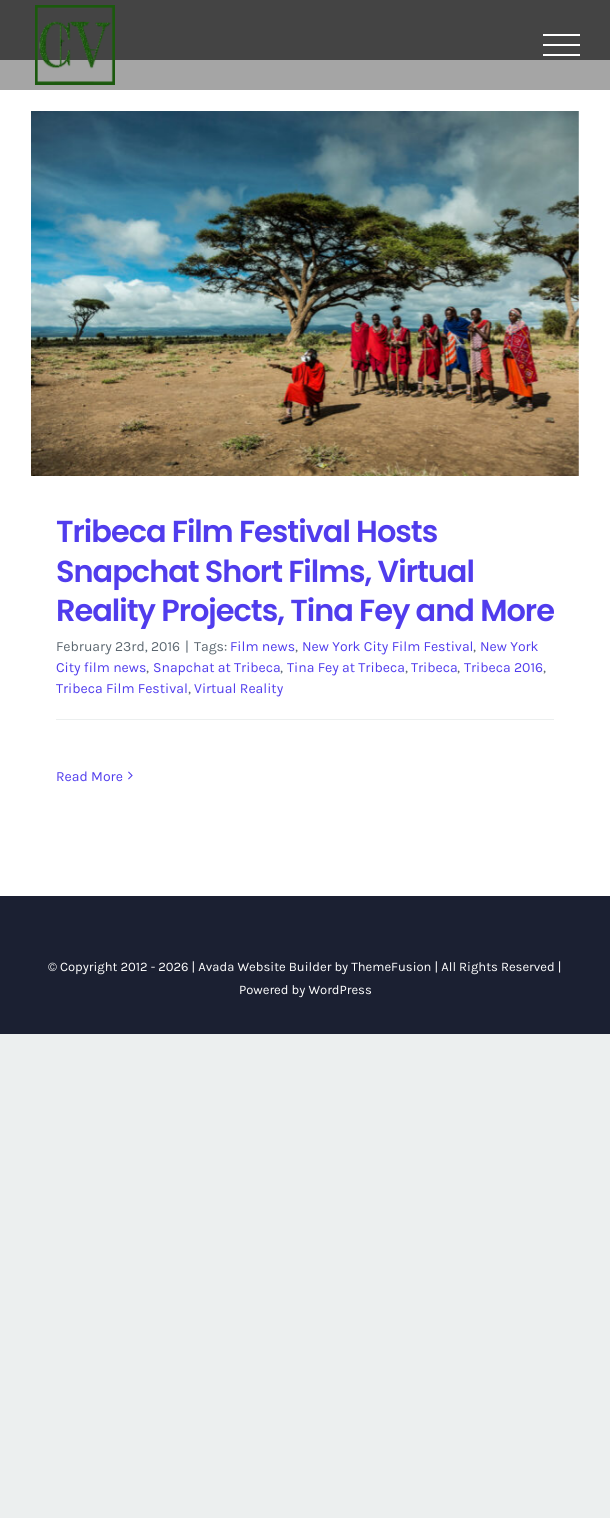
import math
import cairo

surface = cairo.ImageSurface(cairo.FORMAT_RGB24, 610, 1518)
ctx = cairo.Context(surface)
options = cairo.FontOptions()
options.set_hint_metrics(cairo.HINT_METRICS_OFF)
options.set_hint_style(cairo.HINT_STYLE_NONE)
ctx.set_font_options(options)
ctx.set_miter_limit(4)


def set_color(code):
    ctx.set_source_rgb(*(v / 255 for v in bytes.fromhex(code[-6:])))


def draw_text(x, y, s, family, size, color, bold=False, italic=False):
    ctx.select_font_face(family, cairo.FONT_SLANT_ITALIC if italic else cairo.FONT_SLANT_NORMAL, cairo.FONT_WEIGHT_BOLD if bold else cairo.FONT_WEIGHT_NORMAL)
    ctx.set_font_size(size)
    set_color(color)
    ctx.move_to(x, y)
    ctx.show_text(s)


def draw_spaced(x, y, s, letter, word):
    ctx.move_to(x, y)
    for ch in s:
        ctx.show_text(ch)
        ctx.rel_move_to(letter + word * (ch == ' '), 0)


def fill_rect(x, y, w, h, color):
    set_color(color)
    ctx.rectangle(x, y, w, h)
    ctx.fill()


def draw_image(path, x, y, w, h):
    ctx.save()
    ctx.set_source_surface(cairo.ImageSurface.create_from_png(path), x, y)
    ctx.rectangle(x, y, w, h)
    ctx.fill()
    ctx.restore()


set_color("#ecefef")
ctx.paint()
fill_rect(0, 90, 610, 806, "#ffffff")
fill_rect(0, 60, 610, 30, "#a5a5a5")
fill_rect(0, 0, 610, 60, "#444444")
draw_image("assets/img1.png", 35, 5, 80, 80)
fill_rect(543, 34, 37, 2, "#ffffff")
fill_rect(543, 44, 37, 2, "#ffffff")
fill_rect(543, 54, 37, 2, "#ffffff")
draw_image("assets/img2.png", 31, 111, 548, 365)
ctx.select_font_face("Poppins SemiBold")
ctx.set_font_size(30.4)
set_color("#503ced")
draw_spaced(56, 542, "Tribeca Film Festival Hosts", -1, 0)
draw_spaced(56, 582, "Snapchat Short Films, Virtual", -1, 0)
draw_spaced(56, 621, "Reality Projects, Tina Fey and More", -1, 0)
draw_text(56, 651, "February 23rd, 2016", "Karla", 14, "#5c6770")
draw_text(185, 651, "|", "Karla", 14, "#5c6770")
draw_text(194, 651, "Tags:", "Karla", 14, "#5c6770")
draw_text(230, 651, "Film news", "Karla", 14, "#503ced")
draw_text(295, 651, ",", "Karla", 14, "#5c6770")
draw_text(302, 651, "New York City Film Festival", "Karla", 14, "#503ced")
draw_text(473, 651, ",", "Karla", 14, "#5c6770")
draw_text(480, 651, "New York", "Karla", 14, "#503ced")
draw_text(56, 672, "City film news", "Karla", 14, "#503ced")
draw_text(146, 672, ",", "Karla", 14, "#5c6770")
draw_text(153, 672, "Snapchat at Tribeca", "Karla", 14, "#503ced")
draw_text(280, 672, ",", "Karla", 14, "#5c6770")
draw_text(287, 672, "Tina Fey at Tribeca", "Karla", 14, "#503ced")
draw_text(405, 672, ",", "Karla", 14, "#5c6770")
draw_text(411, 672, "Tribeca", "Karla", 14, "#503ced")
draw_text(457, 672, ",", "Karla", 14, "#5c6770")
draw_text(464, 672, "Tribeca 2016", "Karla", 14, "#503ced")
draw_text(543, 672, ",", "Karla", 14, "#5c6770")
draw_text(56, 693, "Tribeca Film Festival", "Karla", 14, "#503ced")
draw_text(188, 693, ",", "Karla", 14, "#5c6770")
draw_text(194, 693, "Virtual Reality", "Karla", 14, "#503ced")
fill_rect(56, 719, 498, 1, "#ecefef")
draw_text(56, 781, "Read More", "Karla", 14, "#503ced")
draw_image("assets/img3.png", 128, 771, 5, 9)
fill_rect(0, 896, 610, 138, "#1b2032")
draw_text(48, 971, "© Copyright 2012 - 2026 | Avada Website Builder by ThemeFusion | All Rights Reserved |", "Karla", 13, "#ffffff")
draw_text(239, 994, "Powered by WordPress", "Karla", 13, "#ffffff")
surface.write_to_png("output.png")
